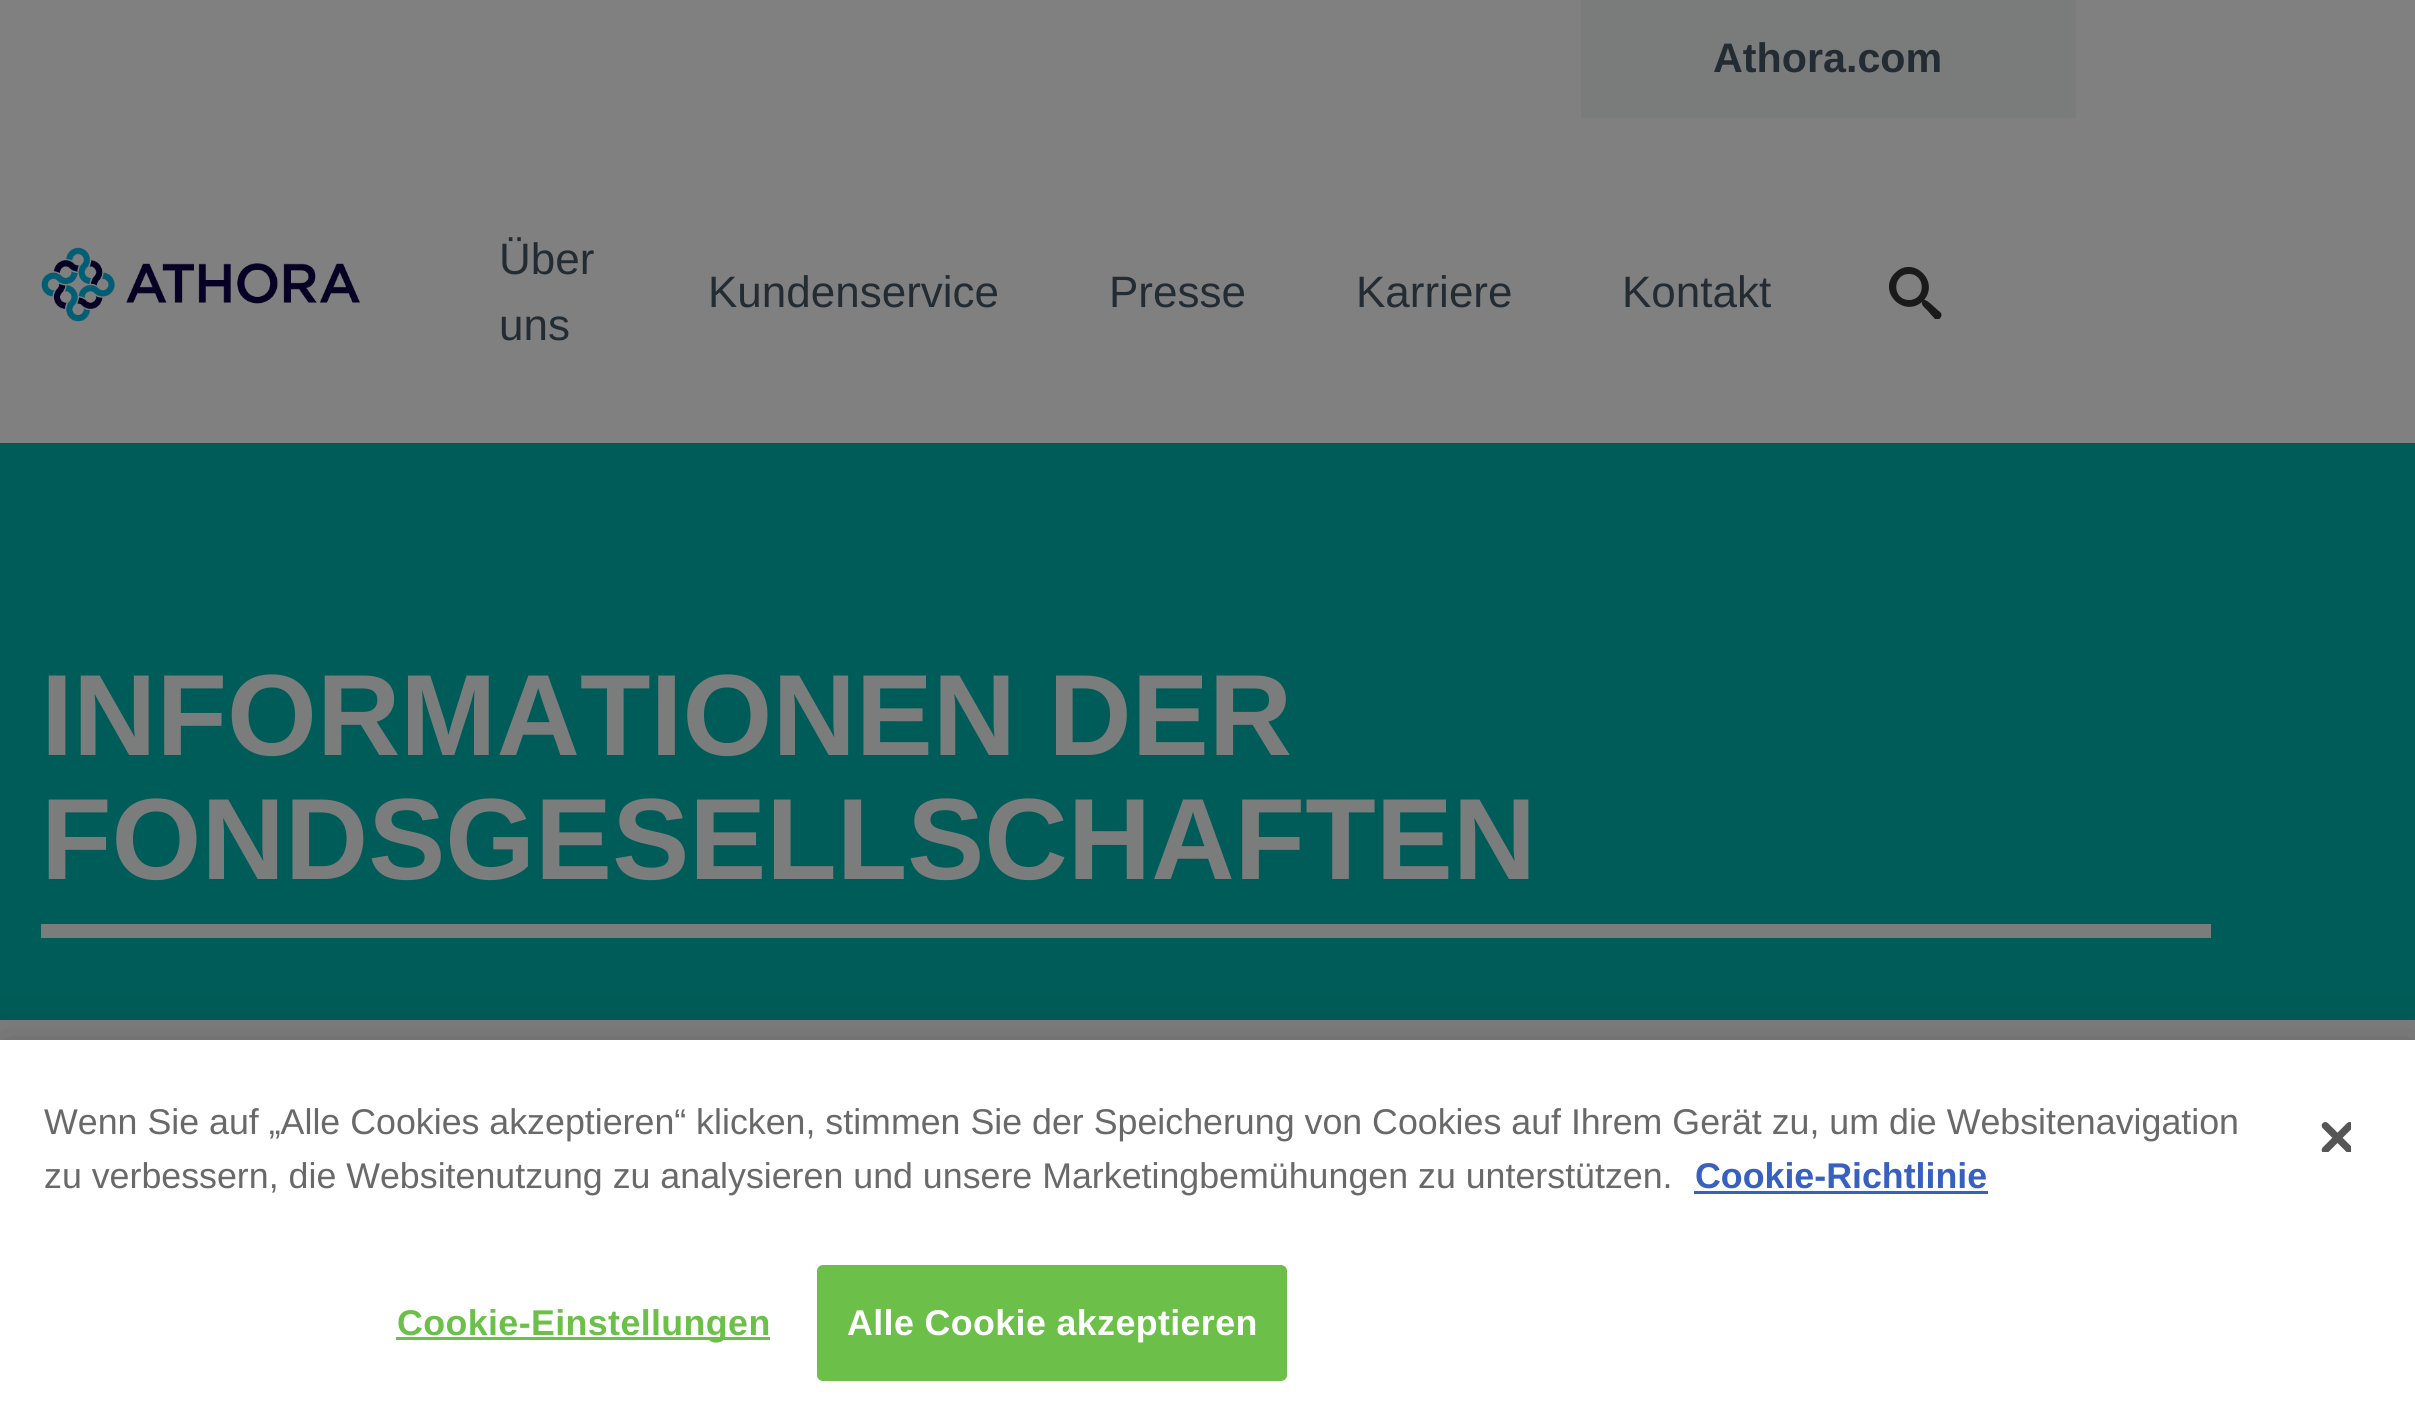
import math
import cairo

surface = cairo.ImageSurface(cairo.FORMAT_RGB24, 2415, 1422)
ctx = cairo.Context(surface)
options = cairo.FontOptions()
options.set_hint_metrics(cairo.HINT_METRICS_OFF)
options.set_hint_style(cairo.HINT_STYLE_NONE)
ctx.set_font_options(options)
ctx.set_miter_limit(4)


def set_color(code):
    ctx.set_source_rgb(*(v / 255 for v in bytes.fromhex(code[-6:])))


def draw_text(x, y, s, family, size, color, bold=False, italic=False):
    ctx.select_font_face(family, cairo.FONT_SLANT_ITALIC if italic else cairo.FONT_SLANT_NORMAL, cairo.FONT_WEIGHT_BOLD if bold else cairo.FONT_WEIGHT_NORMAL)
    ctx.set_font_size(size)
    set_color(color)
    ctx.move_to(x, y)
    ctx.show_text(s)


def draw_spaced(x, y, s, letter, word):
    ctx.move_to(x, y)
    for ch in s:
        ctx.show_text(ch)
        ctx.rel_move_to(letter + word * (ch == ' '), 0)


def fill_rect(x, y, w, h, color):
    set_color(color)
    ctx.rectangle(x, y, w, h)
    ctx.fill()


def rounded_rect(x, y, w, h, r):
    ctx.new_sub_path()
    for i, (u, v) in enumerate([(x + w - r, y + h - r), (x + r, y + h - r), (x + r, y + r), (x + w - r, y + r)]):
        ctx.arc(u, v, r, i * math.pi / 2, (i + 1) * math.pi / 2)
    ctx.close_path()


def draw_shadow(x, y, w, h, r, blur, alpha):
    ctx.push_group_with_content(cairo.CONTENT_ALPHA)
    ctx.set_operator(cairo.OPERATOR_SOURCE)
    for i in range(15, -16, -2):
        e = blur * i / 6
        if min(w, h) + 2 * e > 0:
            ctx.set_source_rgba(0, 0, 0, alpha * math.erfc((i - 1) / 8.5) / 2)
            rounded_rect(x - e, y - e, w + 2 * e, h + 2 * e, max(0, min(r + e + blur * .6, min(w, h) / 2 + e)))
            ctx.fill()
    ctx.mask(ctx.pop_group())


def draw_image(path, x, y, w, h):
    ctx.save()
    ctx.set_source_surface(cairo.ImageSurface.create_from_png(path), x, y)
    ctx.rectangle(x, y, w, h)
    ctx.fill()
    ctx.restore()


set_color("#808080")
ctx.paint()
fill_rect(1581, 0, 495, 118, "#7a7b7b")
draw_text(1713, 72, "Athora.com", "Liberation Sans", 41.25, "#242c33", bold=True)
draw_image("assets/img1.png", 41, 247, 320, 75)
draw_text(499, 274, "Über", "Liberation Sans", 44, "#242c33")
draw_text(499, 340, "uns", "Liberation Sans", 44, "#242c33")
draw_text(708, 307, "Kundenservice", "Liberation Sans", 44, "#242c33")
draw_text(1109, 307, "Presse", "Liberation Sans", 44, "#242c33")
draw_text(1356, 307, "Karriere", "Liberation Sans", 44, "#242c33")
draw_text(1622, 307, "Kontakt", "Liberation Sans", 44, "#242c33")
ctx.save()
ctx.rectangle(1889, 267, 83, 52)
ctx.clip()
set_color("#1a1a1a")
ctx.new_path()
ctx.move_to(1940, 312)
ctx.curve_to(1937, 310, 1927, 299, 1924, 300)
ctx.curve_to(1940, 281, 1913, 255, 1895, 273)
ctx.curve_to(1877, 291, 1903, 318, 1922, 302)
ctx.curve_to(1921, 305, 1925, 308, 1927, 310)
ctx.line_to(1935, 319)
ctx.curve_to(1939, 322, 1944, 315, 1940, 312)
ctx.close_path()
ctx.move_to(1909, 300)
ctx.curve_to(1892, 300, 1892, 274, 1909, 274)
ctx.curve_to(1926, 274, 1926, 300, 1909, 300)
ctx.close_path()
ctx.fill()
ctx.restore()
fill_rect(0, 443, 2415, 577, "#005c58")
fill_rect(41, 924, 2170, 14, "#7b7c7c")
draw_text(41, 755, "INFORMATIONEN DER", "Liberation Sans", 115.5, "#7b7c7c", bold=True)
draw_text(41, 879, "FONDSGESELLSCHAFTEN", "Liberation Sans", 115.5, "#7b7c7c", bold=True)
set_color("#000000")
draw_shadow(0, 1040, 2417, 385, 0, 25, 0.2)
fill_rect(0, 1040, 2415, 382, "#ffffff")
draw_text(44, 1134, "Wenn Sie auf „Alle Cookies akzeptieren“ klicken, stimmen Sie der Speicherung von Cookies auf Ihrem Gerät zu, um die Websitenavigation", "Liberation Sans", 35.77, "#696969")
draw_text(44, 1188, "zu verbessern, die Websitenutzung zu analysieren und unsere Marketingbemühungen zu unterstützen.", "Liberation Sans", 35.77, "#696969")
draw_text(1695, 1188, "Cookie-Richtlinie", "Liberation Sans", 35.77, "#3860be", bold=True)
fill_rect(1694, 1191, 294, 3, "#3860be")
draw_image("assets/img2.png", 2321, 1122, 30, 30)
fill_rect(396, 1337, 374, 3, "#6cc04a")
draw_spaced(397, 1335, "Cookie-Einstellungen", 0.4, 0)
rounded_rect(818.5, 1266.5, 467, 113, 4.5)
ctx.fill_preserve()
ctx.set_line_width(3)
ctx.stroke()
set_color("#ffffff")
draw_spaced(847, 1335, "Alle Cookie akzeptieren", 0.4, 0)
surface.write_to_png("output.png")
